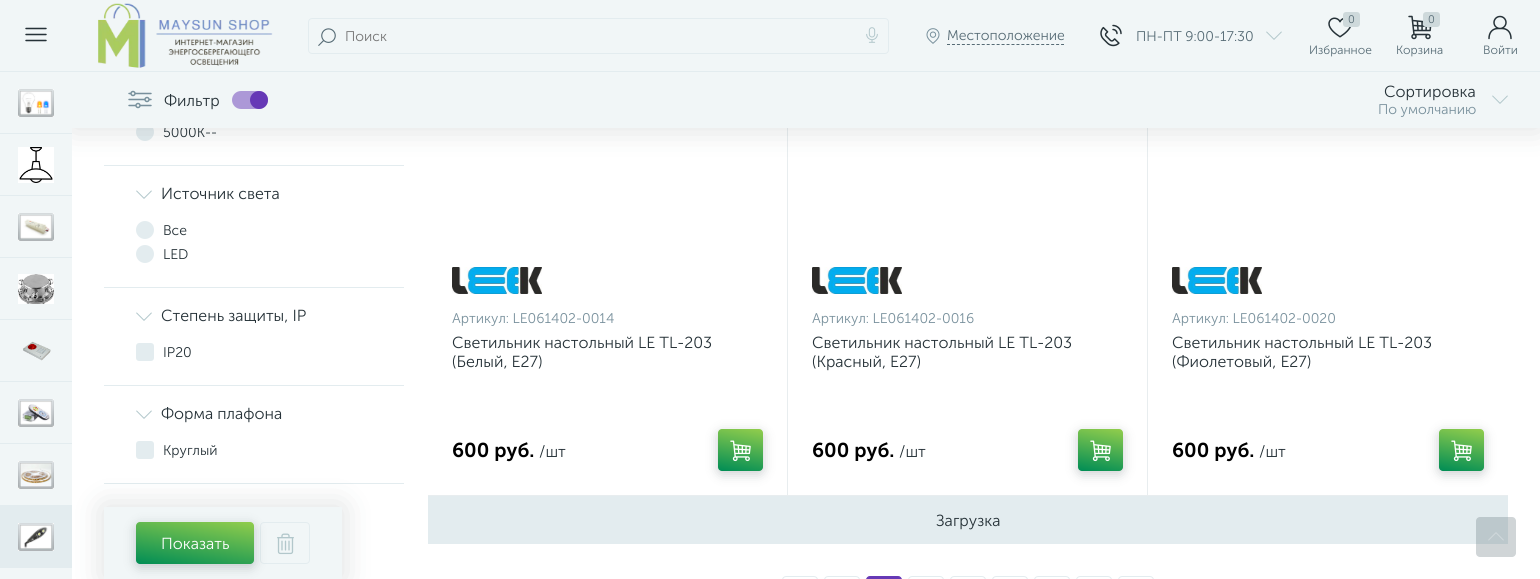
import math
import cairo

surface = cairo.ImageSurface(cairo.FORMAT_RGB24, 1540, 579)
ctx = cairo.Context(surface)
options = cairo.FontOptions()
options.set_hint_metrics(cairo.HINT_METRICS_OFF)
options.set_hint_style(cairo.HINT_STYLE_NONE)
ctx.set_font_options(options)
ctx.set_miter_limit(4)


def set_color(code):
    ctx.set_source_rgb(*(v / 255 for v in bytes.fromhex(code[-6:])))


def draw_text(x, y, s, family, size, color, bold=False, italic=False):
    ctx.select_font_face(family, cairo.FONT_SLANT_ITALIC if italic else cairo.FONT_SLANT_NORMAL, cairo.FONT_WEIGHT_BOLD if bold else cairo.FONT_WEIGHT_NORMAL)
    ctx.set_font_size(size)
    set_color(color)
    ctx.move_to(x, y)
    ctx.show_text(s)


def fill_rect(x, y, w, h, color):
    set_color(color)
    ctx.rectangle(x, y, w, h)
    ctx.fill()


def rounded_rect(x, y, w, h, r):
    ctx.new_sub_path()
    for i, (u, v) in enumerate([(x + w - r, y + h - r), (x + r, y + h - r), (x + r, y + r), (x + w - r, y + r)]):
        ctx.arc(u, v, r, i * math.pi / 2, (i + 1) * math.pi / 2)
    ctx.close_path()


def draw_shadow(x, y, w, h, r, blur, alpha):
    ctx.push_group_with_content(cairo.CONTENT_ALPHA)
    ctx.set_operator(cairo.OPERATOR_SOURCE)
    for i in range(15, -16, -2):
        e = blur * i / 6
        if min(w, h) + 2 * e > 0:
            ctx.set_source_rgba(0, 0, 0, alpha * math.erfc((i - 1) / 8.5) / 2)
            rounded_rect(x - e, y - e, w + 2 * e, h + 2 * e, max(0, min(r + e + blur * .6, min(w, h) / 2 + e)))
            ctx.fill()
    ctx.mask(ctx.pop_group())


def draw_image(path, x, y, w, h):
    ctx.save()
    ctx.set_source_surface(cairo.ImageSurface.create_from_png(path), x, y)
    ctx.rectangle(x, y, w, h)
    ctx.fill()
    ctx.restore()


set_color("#ffffff")
ctx.paint()
set_color("#e3ecef")
ctx.arc(145, 132, 9, 0, 2 * math.pi)
ctx.fill()
fill_rect(104, 165, 300, 1, "#e3ecef")
fill_rect(787, 128, 1, 368, "#e8edef")
fill_rect(1147, 128, 1, 368, "#e8edef")
set_color("#263238")
draw_shadow(72, 72, 1468, 56, 0, 16, 0.16)
fill_rect(0, 0, 1540, 71, "#f1f6f7")
draw_image("assets/img1.png", 25, 27, 22, 15)
draw_image("assets/img2.png", 98, 3, 175, 65)
rounded_rect(308.5, 18.5, 580, 35, 3.5)
set_color("#e3ecef")
ctx.set_line_width(1)
ctx.stroke()
draw_image("assets/img3.png", 318, 28, 18, 18)
draw_text(345, 41, "Поиск", "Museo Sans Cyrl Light", 14, "#757575")
draw_image("assets/img4.png", 866, 27, 12, 16)
draw_image("assets/img5.png", 926, 28, 14, 16)
ctx.new_path()
ctx.move_to(947, 44.5)
ctx.line_to(1064, 44.5)
set_color("#566b75")
ctx.set_dash([3, 1.96])
ctx.stroke()
draw_text(947, 40, "Местоположение", "Museo Sans Cyrl Light", 14, "#566b75")
draw_image("assets/img6.png", 1100, 24, 22, 23)
draw_text(1136, 41, "ПН-ПТ 9:00-17:30", "Museo Sans Cyrl Light", 14, "#566b75")
draw_image("assets/img7.png", 1266, 31, 16, 9)
draw_image("assets/img8.png", 1328, 17, 23, 21)
set_color("#ced9db")
rounded_rect(1343, 12, 17, 15, 3)
ctx.fill()
draw_text(1348, 23, "0", "Museo Sans Cyrl Light", 11, "#566b75")
draw_text(1309, 54, "Избранное", "Museo Sans Cyrl Light", 12, "#566b75")
draw_image("assets/img9.png", 1408, 15, 24, 25)
set_color("#ced9db")
rounded_rect(1423, 12, 17, 15, 3)
ctx.fill()
draw_text(1428, 23, "0", "Museo Sans Cyrl Light", 11, "#566b75")
draw_text(1396, 54, "Корзина", "Museo Sans Cyrl Light", 12, "#566b75")
draw_image("assets/img10.png", 1488, 15, 24, 25)
draw_text(1483, 54, "Войти", "Museo Sans Cyrl Light", 12, "#566b75")
fill_rect(0, 71, 1540, 1, "#e3ecef")
rounded_rect(136, 441, 18, 18, 3)
ctx.fill()
fill_rect(104, 483, 300, 1, "#e3ecef")
set_color("#263238")
draw_shadow(104, 507, 238, 72, 0, 16, 0.16)
fill_rect(0, 72, 72, 507, "#f1f6f7")
draw_image("assets/img11.png", 18, 89, 36, 28)
fill_rect(0, 133, 72, 1, "#e3ecef")
draw_image("assets/img12.png", 18, 147, 36, 36)
fill_rect(0, 195, 72, 1, "#e3ecef")
draw_image("assets/img13.png", 18, 213, 36, 28)
fill_rect(0, 257, 72, 1, "#e3ecef")
draw_image("assets/img14.png", 18, 274, 36, 30)
fill_rect(0, 319, 72, 1, "#e3ecef")
draw_image("assets/img15.png", 23, 341, 28, 20)
fill_rect(0, 381, 72, 1, "#e3ecef")
draw_image("assets/img16.png", 18, 399, 36, 28)
fill_rect(0, 443, 72, 1, "#e3ecef")
draw_image("assets/img17.png", 18, 461, 36, 28)
fill_rect(0, 505, 72, 63, "#e3ecef")
draw_image("assets/img18.png", 18, 523, 36, 28)
draw_text(163, 137, "5000K--", "Museo Sans Cyrl Light", 14, "#263238")
fill_rect(72, 72, 1468, 56, "#f1f6f7")
draw_image("assets/img19.png", 128, 90, 24, 19)
draw_text(164, 106, "Фильтр", "Museo Sans Cyrl Light", 16, "#263238")
set_color("#ac98d7")
rounded_rect(232, 91, 36, 18, 9)
ctx.fill()
set_color("#6639b6")
ctx.arc(259, 100, 9, 0, 2 * math.pi)
ctx.fill()
draw_text(1384, 97, "Сортировка", "Museo Sans Cyrl Light", 16, "#263238")
draw_text(1378, 114, "По умолчанию", "Museo Sans Cyrl Light", 14, "#78909c")
draw_image("assets/img7.png", 1492, 95, 16, 9)
draw_image("assets/img20.png", 136, 190, 16, 9)
draw_text(161, 199, "Источник света", "Museo Sans Cyrl Light", 16, "#263238")
set_color("#e3ecef")
ctx.new_path()
ctx.arc(145, 230, 9, 0, 2 * math.pi)
ctx.fill()
draw_text(163, 235, "Все", "Museo Sans Cyrl Light", 14, "#263238")
set_color("#e3ecef")
ctx.new_path()
ctx.arc(145, 254, 9, 0, 2 * math.pi)
ctx.fill()
draw_text(163, 259, "LED", "Museo Sans Cyrl Light", 14, "#263238")
fill_rect(104, 287, 300, 1, "#e3ecef")
draw_image("assets/img20.png", 136, 312, 16, 9)
draw_text(161, 321, "Степень защиты, IP", "Museo Sans Cyrl Light", 16, "#263238")
set_color("#e3ecef")
rounded_rect(136, 343, 18, 18, 3)
ctx.fill()
draw_text(163, 357, "IP20", "Museo Sans Cyrl Light", 14, "#263238")
fill_rect(104, 385, 300, 1, "#e3ecef")
draw_image("assets/img20.png", 136, 410, 16, 9)
draw_text(161, 419, "Форма плафона", "Museo Sans Cyrl Light", 16, "#263238")
draw_text(163, 455, "Круглый", "Museo Sans Cyrl Light", 14, "#263238")
fill_rect(104, 507, 238, 72, "#f1f6f7")
rounded_rect(260.5, 522.5, 49, 41, 3.5)
set_color("#e3ecef")
ctx.set_dash([])
ctx.stroke()
set_color("#263238")
draw_shadow(136, 525, 118, 42, 4, 6, 0.24)
gradient = cairo.LinearGradient(190, 573, 200, 513)
gradient.add_color_stop_rgba(0, 0, 0.553, 0.333, 1)
gradient.add_color_stop_rgba(1, 0.569, 0.804, 0.298, 1)
ctx.set_source(gradient)
rounded_rect(136, 522, 118, 42, 4)
ctx.fill()
draw_text(161, 549, "Показать", "Museo Sans Cyrl Light", 16, "#ffffff")
draw_image("assets/img21.png", 277, 533, 17, 22)
fill_rect(428, 495, 360, 1, "#e8edef")
draw_image("assets/img22.png", 452, 267, 90, 27)
draw_text(452, 323, "Артикул: LE061402-0014", "Museo Sans Cyrl Light", 14, "#78909c")
draw_text(452, 348, "Светильник настольный LE TL-203", "Museo Sans Cyrl Light", 16, "#263238")
draw_text(452, 367, "(Белый, Е27)", "Museo Sans Cyrl Light", 16, "#263238")
draw_text(452, 457, "600 руб.", "Museo Sans Cyrl SemiBold", 20, "#000000")
draw_text(539, 457, "/шт", "Museo Sans Cyrl Light", 16, "#263238")
set_color("#263238")
draw_shadow(718, 432, 45, 42, 4, 6, 0.24)
gradient = cairo.LinearGradient(736, 474, 745, 426)
gradient.add_color_stop_rgba(0, 0, 0.553, 0.333, 1)
gradient.add_color_stop_rgba(1, 0.569, 0.804, 0.298, 1)
ctx.set_source(gradient)
rounded_rect(718, 429, 45, 42, 4)
ctx.fill()
draw_image("assets/img23.png", 730, 440, 21, 22)
fill_rect(788, 495, 720, 1, "#e8edef")
draw_image("assets/img24.png", 812, 267, 90, 27)
draw_text(812, 323, "Артикул: LE061402-0016", "Museo Sans Cyrl Light", 14, "#78909c")
draw_text(812, 348, "Светильник настольный LE TL-203", "Museo Sans Cyrl Light", 16, "#263238")
draw_text(812, 367, "(Красный, Е27)", "Museo Sans Cyrl Light", 16, "#263238")
draw_text(812, 457, "600 руб.", "Museo Sans Cyrl SemiBold", 20, "#000000")
draw_text(899, 457, "/шт", "Museo Sans Cyrl Light", 16, "#263238")
set_color("#263238")
draw_shadow(1078, 432, 45, 42, 4, 6, 0.24)
gradient = cairo.LinearGradient(1096, 474, 1105, 426)
gradient.add_color_stop_rgba(0, 0, 0.553, 0.333, 1)
gradient.add_color_stop_rgba(1, 0.569, 0.804, 0.298, 1)
ctx.set_source(gradient)
rounded_rect(1078, 429, 45, 42, 4)
ctx.fill()
draw_image("assets/img23.png", 1090, 440, 21, 22)
draw_image("assets/img22.png", 1172, 267, 90, 27)
draw_text(1172, 323, "Артикул: LE061402-0020", "Museo Sans Cyrl Light", 14, "#78909c")
draw_text(1172, 348, "Светильник настольный LE TL-203", "Museo Sans Cyrl Light", 16, "#263238")
draw_text(1172, 367, "(Фиолетовый, Е27)", "Museo Sans Cyrl Light", 16, "#263238")
draw_text(1172, 457, "600 руб.", "Museo Sans Cyrl SemiBold", 20, "#000000")
draw_text(1259, 457, "/шт", "Museo Sans Cyrl Light", 16, "#263238")
set_color("#263238")
draw_shadow(1439, 432, 45, 42, 4, 6, 0.24)
gradient = cairo.LinearGradient(1457, 474, 1466, 426)
gradient.add_color_stop_rgba(0, 0, 0.553, 0.333, 1)
gradient.add_color_stop_rgba(1, 0.569, 0.804, 0.298, 1)
ctx.set_source(gradient)
rounded_rect(1439, 429, 45, 42, 4)
ctx.fill()
draw_image("assets/img23.png", 1451, 440, 21, 22)
fill_rect(428, 496, 1080, 48, "#e3ecef")
draw_text(936, 526, "Загрузка", "Museo Sans Cyrl Light", 16, "#263238")
rounded_rect(782.5, 576.5, 35, 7, 3.5)
set_color("#e3ecef")
ctx.stroke()
rounded_rect(824.5, 576.5, 35, 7, 3.5)
ctx.stroke()
set_color("#6639b6")
rounded_rect(866.5, 576.5, 35, 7, 3.5)
ctx.fill_preserve()
ctx.stroke()
rounded_rect(908.5, 576.5, 35, 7, 3.5)
set_color("#e3ecef")
ctx.stroke()
rounded_rect(950.5, 576.5, 35, 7, 3.5)
ctx.stroke()
rounded_rect(992.5, 576.5, 35, 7, 3.5)
ctx.stroke()
rounded_rect(1034.5, 576.5, 35, 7, 3.5)
ctx.stroke()
rounded_rect(1076.5, 576.5, 35, 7, 3.5)
ctx.stroke()
rounded_rect(1118.5, 576.5, 35, 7, 3.5)
ctx.stroke()
ctx.set_source_rgba(0.38, 0.455, 0.478, 0.3)
rounded_rect(1476, 517, 40, 40, 4)
ctx.fill()
draw_image("assets/img25.png", 1488, 532, 16, 9)
surface.write_to_png("output.png")
